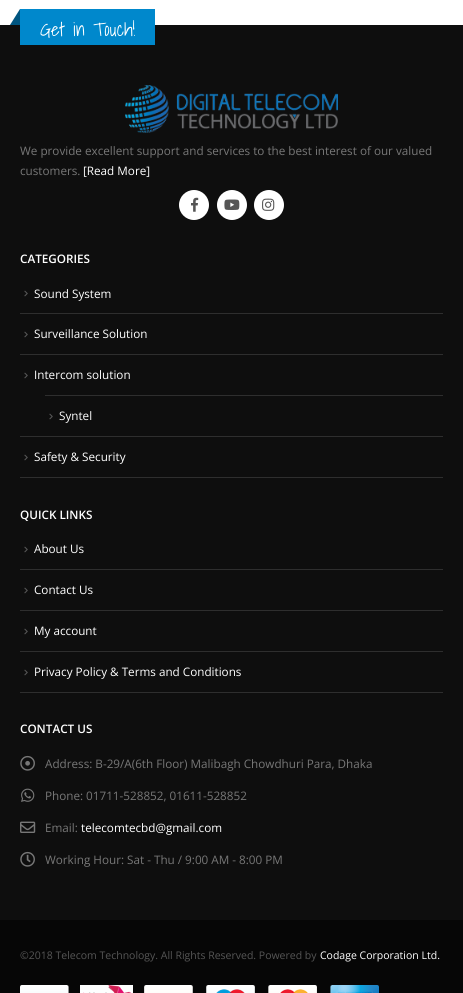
import math
import cairo

surface = cairo.ImageSurface(cairo.FORMAT_RGB24, 463, 993)
ctx = cairo.Context(surface)
options = cairo.FontOptions()
options.set_hint_metrics(cairo.HINT_METRICS_OFF)
options.set_hint_style(cairo.HINT_STYLE_NONE)
ctx.set_font_options(options)
ctx.set_miter_limit(4)


def set_color(code):
    ctx.set_source_rgb(*(v / 255 for v in bytes.fromhex(code[-6:])))


def draw_text(x, y, s, family, size, color, bold=False, italic=False):
    ctx.select_font_face(family, cairo.FONT_SLANT_ITALIC if italic else cairo.FONT_SLANT_NORMAL, cairo.FONT_WEIGHT_BOLD if bold else cairo.FONT_WEIGHT_NORMAL)
    ctx.set_font_size(size)
    set_color(color)
    ctx.move_to(x, y)
    ctx.show_text(s)


def fill_rect(x, y, w, h, color):
    set_color(color)
    ctx.rectangle(x, y, w, h)
    ctx.fill()


def draw_image(path, x, y, w, h):
    ctx.save()
    ctx.set_source_surface(cairo.ImageSurface.create_from_png(path), x, y)
    ctx.rectangle(x, y, w, h)
    ctx.fill()
    ctx.restore()


set_color("#ffffff")
ctx.paint()
fill_rect(0, 25, 463, 895, "#0e0e0e")
fill_rect(20, 9, 135, 36, "#0088cc")
set_color("#005580")
ctx.new_path()
ctx.move_to(20, 9)
ctx.line_to(20, 25)
ctx.line_to(10, 25)
ctx.close_path()
ctx.fill()
draw_text(40, 36, "Get in Touch!", "Shadows Into Light Light", 18.75, "#ffffff")
draw_image("assets/img1.png", 125, 85, 213, 48)
draw_text(20, 155, "We provide excellent support and services to the best interest of our valued", "Open Sans", 11.7, "#777777")
draw_text(20, 175, "customers.", "Open Sans", 11.7, "#777777")
draw_text(83, 175, "[Read More]", "Open Sans", 11.7, "#ffffff")
ctx.new_path()
ctx.arc(194, 205, 15, 0, 2 * math.pi)
ctx.fill()
draw_image("assets/img2.png", 191, 197, 8, 15)
ctx.arc(232, 205, 15, 0, 2 * math.pi)
ctx.fill()
draw_image("assets/img3.png", 224, 199, 16, 11)
ctx.arc(269, 205, 15, 0, 2 * math.pi)
ctx.fill()
draw_image("assets/img4.png", 262, 198, 13, 13)
draw_text(20, 263, "CATEGORIES", "Open Sans SemiBold", 11.7, "#ffffff")
fill_rect(20, 477, 423, 1, "#2e2e2e")
draw_image("assets/img5.png", 24, 290, 4, 7)
draw_text(34, 298, "Sound System", "Open Sans", 11.7, "#ffffff")
fill_rect(20, 313, 423, 1, "#2e2e2e")
draw_image("assets/img5.png", 24, 331, 4, 7)
draw_text(34, 338, "Surveillance Solution", "Open Sans", 11.7, "#ffffff")
fill_rect(20, 354, 423, 1, "#2e2e2e")
draw_image("assets/img5.png", 24, 372, 4, 7)
draw_text(34, 379, "Intercom solution", "Open Sans", 11.7, "#ffffff")
fill_rect(45, 395, 398, 1, "#2e2e2e")
draw_image("assets/img5.png", 49, 413, 4, 7)
draw_text(59, 420, "Syntel", "Open Sans", 11.7, "#ffffff")
fill_rect(20, 436, 423, 1, "#2e2e2e")
draw_image("assets/img5.png", 24, 454, 4, 7)
draw_text(34, 461, "Safety & Security", "Open Sans", 11.7, "#ffffff")
draw_text(20, 519, "QUICK LINKS", "Open Sans SemiBold", 11.7, "#ffffff")
fill_rect(20, 692, 423, 1, "#2e2e2e")
draw_image("assets/img5.png", 24, 546, 4, 7)
draw_text(34, 553, "About Us", "Open Sans", 11.7, "#ffffff")
fill_rect(20, 569, 423, 1, "#2e2e2e")
draw_image("assets/img5.png", 24, 587, 4, 7)
draw_text(34, 594, "Contact Us", "Open Sans", 11.7, "#ffffff")
fill_rect(20, 610, 423, 1, "#2e2e2e")
draw_image("assets/img5.png", 24, 628, 4, 7)
draw_text(34, 635, "My account", "Open Sans", 11.7, "#ffffff")
fill_rect(20, 651, 423, 1, "#2e2e2e")
draw_image("assets/img5.png", 24, 669, 4, 7)
draw_text(34, 676, "Privacy Policy & Terms and Conditions", "Open Sans", 11.7, "#ffffff")
draw_text(20, 733, "CONTACT US", "Open Sans SemiBold", 11.7, "#ffffff")
draw_image("assets/img6.png", 20, 755, 15, 16)
draw_text(45, 768, "Address: B-29/A(6th Floor) Malibagh Chowdhuri Para, Dhaka", "Open Sans", 11.7, "#777777")
draw_image("assets/img7.png", 21, 788, 14, 14)
draw_text(45, 800, "Phone: 01711-528852, 01611-528852", "Open Sans", 11.7, "#777777")
draw_image("assets/img8.png", 20, 821, 16, 12)
draw_text(45, 832, "Email:", "Open Sans", 11.7, "#777777")
draw_text(81, 832, "telecomtecbd@gmail.com", "Open Sans", 11.7, "#ffffff")
draw_image("assets/img9.png", 20, 851, 15, 16)
draw_text(45, 864, "Working Hour: Sat - Thu / 9:00 AM - 8:00 PM", "Open Sans", 11.7, "#777777")
fill_rect(0, 920, 463, 73, "#060606")
draw_text(20, 959, "©2018 Telecom Technology. All Rights Reserved. Powered by", "Open Sans", 10.5, "#555555")
draw_text(320, 959, "Codage Corporation Ltd.", "Open Sans", 10.5, "#ffffff")
draw_image("assets/img10.png", 20, 985, 359, 8)
surface.write_to_png("output.png")
